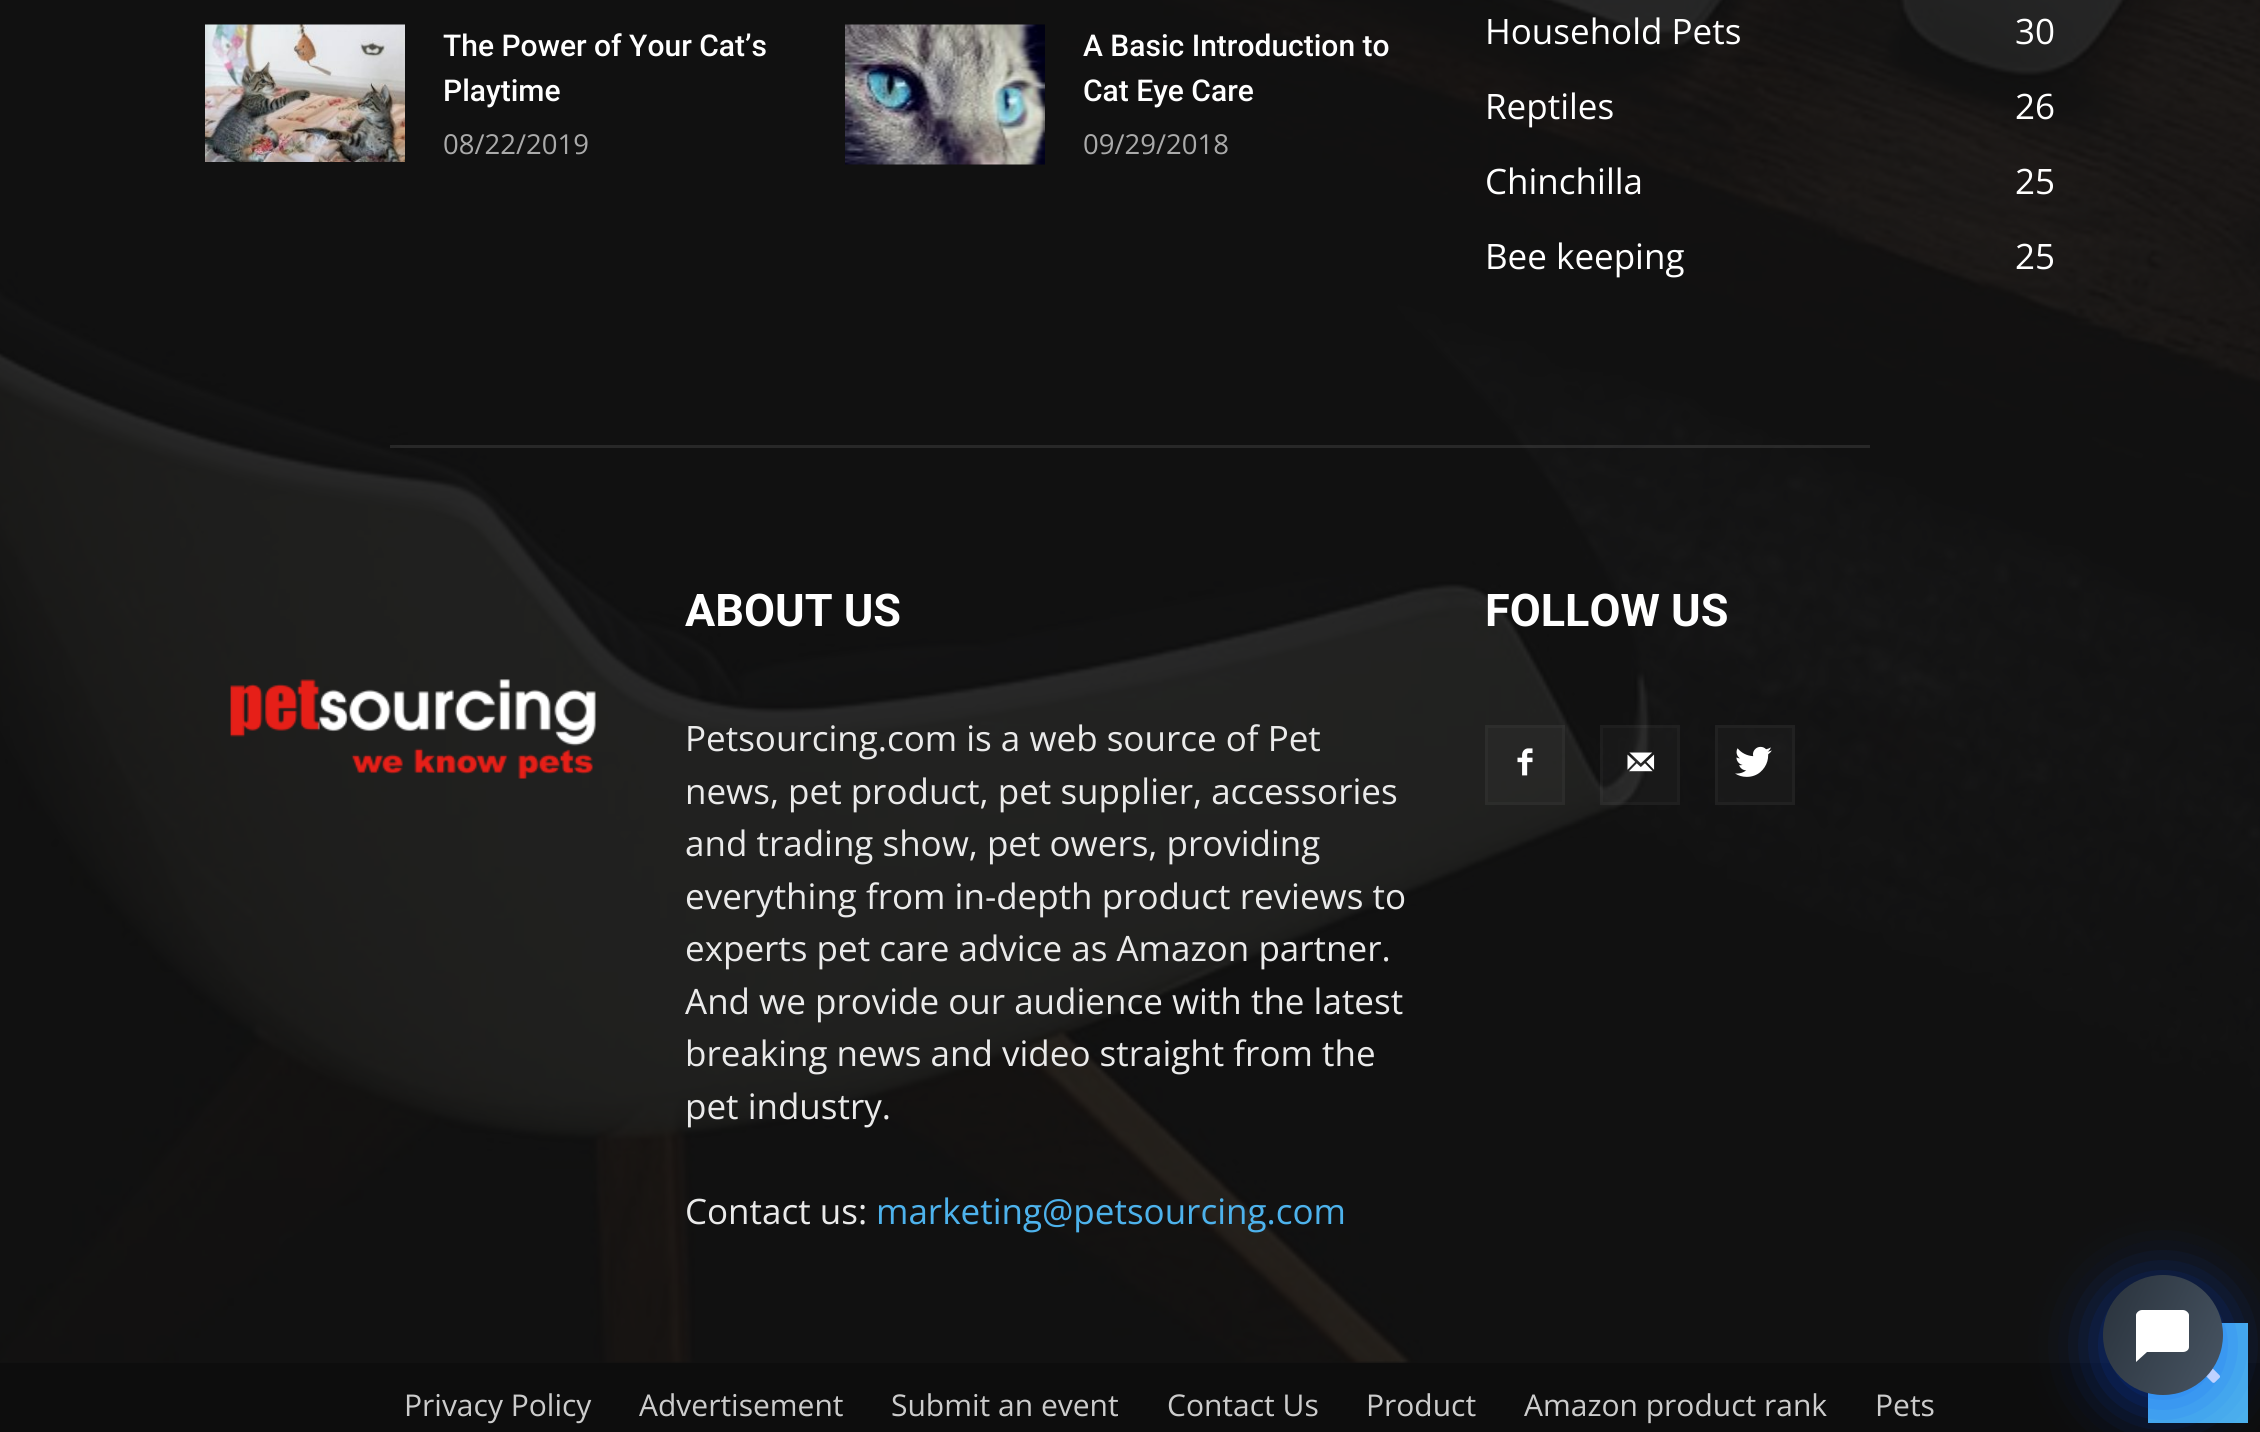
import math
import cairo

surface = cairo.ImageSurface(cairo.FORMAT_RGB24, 2260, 1432)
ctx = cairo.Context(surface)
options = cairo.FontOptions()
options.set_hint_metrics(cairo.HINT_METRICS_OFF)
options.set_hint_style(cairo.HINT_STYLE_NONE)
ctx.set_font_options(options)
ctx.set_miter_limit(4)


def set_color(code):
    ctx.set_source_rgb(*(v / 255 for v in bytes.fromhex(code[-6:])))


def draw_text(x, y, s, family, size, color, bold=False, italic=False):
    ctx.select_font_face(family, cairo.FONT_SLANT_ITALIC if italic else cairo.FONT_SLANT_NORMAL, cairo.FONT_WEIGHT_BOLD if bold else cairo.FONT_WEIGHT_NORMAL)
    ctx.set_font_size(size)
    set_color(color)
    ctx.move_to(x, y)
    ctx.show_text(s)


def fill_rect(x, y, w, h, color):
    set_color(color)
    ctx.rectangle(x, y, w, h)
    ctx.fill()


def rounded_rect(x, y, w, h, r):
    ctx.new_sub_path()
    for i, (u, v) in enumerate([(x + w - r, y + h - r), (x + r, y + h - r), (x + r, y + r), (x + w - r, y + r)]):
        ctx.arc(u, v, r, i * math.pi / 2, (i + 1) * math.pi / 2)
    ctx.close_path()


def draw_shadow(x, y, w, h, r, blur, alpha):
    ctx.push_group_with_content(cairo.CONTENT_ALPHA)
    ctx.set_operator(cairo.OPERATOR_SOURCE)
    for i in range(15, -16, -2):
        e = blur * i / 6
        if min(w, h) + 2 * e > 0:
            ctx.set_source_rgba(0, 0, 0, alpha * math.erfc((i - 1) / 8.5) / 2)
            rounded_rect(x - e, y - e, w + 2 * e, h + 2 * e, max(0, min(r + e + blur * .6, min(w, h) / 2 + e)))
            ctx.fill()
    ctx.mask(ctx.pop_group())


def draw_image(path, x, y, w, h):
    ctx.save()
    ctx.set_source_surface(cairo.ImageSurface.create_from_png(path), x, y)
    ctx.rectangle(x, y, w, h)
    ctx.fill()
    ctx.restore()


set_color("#0d0d0d")
ctx.paint()
fill_rect(0, 0, 2260, 1363, "#111111")
draw_image("assets/img1.png", 0, 0, 2260, 1363)
draw_image("assets/img2.png", 205, 24, 200, 138)
draw_text(443, 56, "The Power of Your Cat’s", "Roboto Medium", 30, "#ffffff")
draw_text(443, 101, "Playtime", "Roboto Medium", 30, "#ffffff")
draw_text(443, 154, "08/22/2019", "Open Sans", 27.5, "#aaaaaa")
draw_image("assets/img3.png", 845, 24, 200, 141)
draw_text(1083, 56, "A Basic Introduction to", "Roboto Medium", 30, "#ffffff")
draw_text(1083, 101, "Cat Eye Care", "Roboto Medium", 30, "#ffffff")
draw_text(1083, 154, "09/29/2018", "Open Sans", 27.5, "#aaaaaa")
draw_text(1485, 44, "Household Pets", "Open Sans", 35, "#ffffff")
draw_text(2015, 44, "30", "Open Sans", 35, "#ffffff")
draw_text(1485, 119, "Reptiles", "Open Sans", 35, "#ffffff")
draw_text(2015, 119, "26", "Open Sans", 35, "#ffffff")
draw_text(1485, 194, "Chinchilla", "Open Sans", 35, "#ffffff")
draw_text(2015, 194, "25", "Open Sans", 35, "#ffffff")
draw_text(1485, 269, "Bee keeping", "Open Sans", 35, "#ffffff")
draw_text(2015, 269, "25", "Open Sans", 35, "#ffffff")
ctx.set_source_rgba(1, 1, 1, 0.1)
ctx.rectangle(390, 445, 1480, 3)
ctx.fill()
draw_text(685, 626, "ABOUT US", "Roboto", 45, "#ffffff", bold=True)
draw_text(685, 751, "Petsourcing.com is a web source of Pet", "Open Sans", 35, "#eaeaea")
draw_text(685, 804, "news, pet product, pet supplier, accessories", "Open Sans", 35, "#eaeaea")
draw_text(685, 856, "and trading show, pet owers, providing", "Open Sans", 35, "#eaeaea")
draw_text(685, 909, "everything from in-depth product reviews to", "Open Sans", 35, "#eaeaea")
draw_text(685, 961, "experts pet care advice as Amazon partner.", "Open Sans", 35, "#eaeaea")
draw_text(685, 1014, "And we provide our audience with the latest", "Open Sans", 35, "#eaeaea")
draw_text(685, 1066, "breaking news and video straight from the", "Open Sans", 35, "#eaeaea")
draw_text(685, 1119, "pet industry.", "Open Sans", 35, "#eaeaea")
draw_text(685, 1224, "Contact us:", "Open Sans", 35, "#eaeaea")
draw_text(876, 1224, "marketing@petsourcing.com", "Open Sans", 35, "#4db2ec")
draw_text(1485, 626, "FOLLOW US", "Roboto", 45, "#ffffff", bold=True)
ctx.set_source_rgba(1, 1, 1, 0.03)
ctx.rectangle(1485, 725, 80, 80)
ctx.fill()
draw_image("assets/img4.png", 1517, 748, 16, 28)
ctx.rectangle(1486.5, 726.5, 77, 77)
ctx.set_line_width(3)
ctx.stroke()
ctx.rectangle(1600, 725, 80, 80)
ctx.fill()
draw_image("assets/img5.png", 1627, 752, 28, 20)
ctx.rectangle(1601.5, 726.5, 77, 77)
ctx.stroke()
ctx.rectangle(1718, 728, 74, 74)
ctx.fill()
draw_image("assets/img6.png", 1735, 746, 37, 31)
ctx.rectangle(1716.5, 726.5, 77, 77)
set_color("#212121")
ctx.stroke()
draw_image("assets/img7.png", 230, 679, 366, 100)
draw_text(404, 1416, "Privacy Policy", "Open Sans", 30, "#cccccc")
draw_text(639, 1416, "Advertisement", "Open Sans", 30, "#cccccc")
draw_text(891, 1416, "Submit an event", "Open Sans", 30, "#cccccc")
draw_text(1167, 1416, "Contact Us", "Open Sans", 30, "#cccccc")
draw_text(1366, 1416, "Product", "Open Sans", 30, "#cccccc")
draw_text(1524, 1416, "Amazon product rank", "Open Sans", 30, "#cccccc")
draw_text(1875, 1416, "Pets", "Open Sans", 30, "#cccccc")
fill_rect(2148, 1323, 100, 100, "#4db2ec")
draw_image("assets/img8.png", 2206, 1368, 14, 15)
set_color("#004dff")
draw_shadow(2103, 1285, 120, 120, 60, 30, 0.5)
gradient = cairo.LinearGradient(2090, 1301, 2235, 1369)
gradient.add_color_stop_rgba(0, 0.161, 0.196, 0.235, 1)
gradient.add_color_stop_rgba(1, 0.282, 0.333, 0.388, 1)
ctx.set_source(gradient)
ctx.arc(2163, 1335, 60, 0, 2 * math.pi)
ctx.fill()
set_color("#ffffff")
ctx.new_path()
ctx.move_to(2183, 1310)
ctx.line_to(2142, 1310)
ctx.curve_to(2139, 1310, 2136, 1313, 2136, 1315)
ctx.line_to(2136, 1362)
ctx.line_to(2147, 1352)
ctx.line_to(2183, 1352)
ctx.curve_to(2186, 1352, 2189, 1350, 2189, 1347)
ctx.line_to(2189, 1315)
ctx.curve_to(2189, 1313, 2186, 1310, 2183, 1310)
ctx.close_path()
ctx.fill()
surface.write_to_png("output.png")
